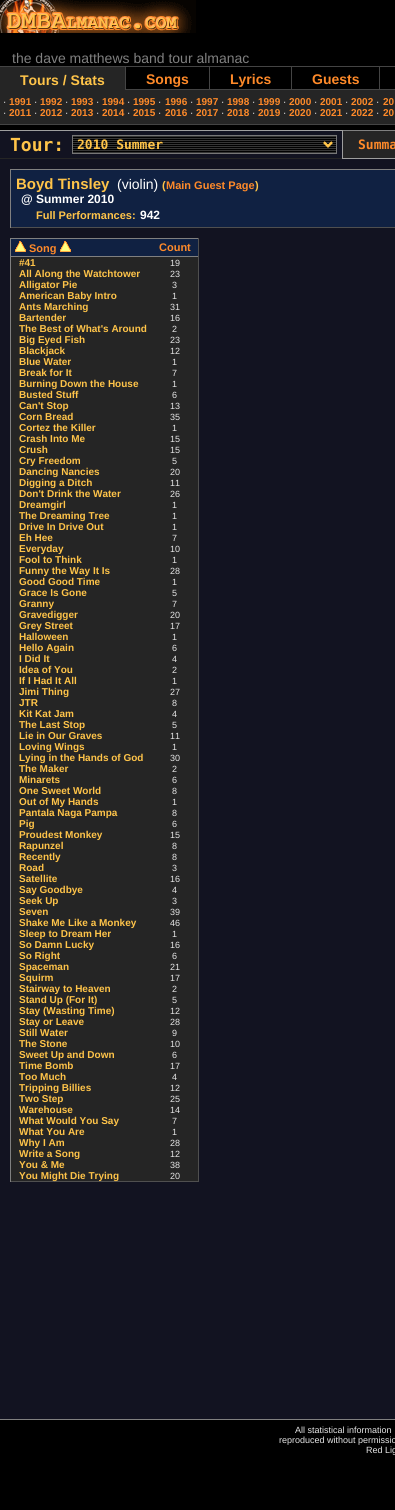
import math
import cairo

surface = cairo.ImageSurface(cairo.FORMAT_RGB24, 395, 1510)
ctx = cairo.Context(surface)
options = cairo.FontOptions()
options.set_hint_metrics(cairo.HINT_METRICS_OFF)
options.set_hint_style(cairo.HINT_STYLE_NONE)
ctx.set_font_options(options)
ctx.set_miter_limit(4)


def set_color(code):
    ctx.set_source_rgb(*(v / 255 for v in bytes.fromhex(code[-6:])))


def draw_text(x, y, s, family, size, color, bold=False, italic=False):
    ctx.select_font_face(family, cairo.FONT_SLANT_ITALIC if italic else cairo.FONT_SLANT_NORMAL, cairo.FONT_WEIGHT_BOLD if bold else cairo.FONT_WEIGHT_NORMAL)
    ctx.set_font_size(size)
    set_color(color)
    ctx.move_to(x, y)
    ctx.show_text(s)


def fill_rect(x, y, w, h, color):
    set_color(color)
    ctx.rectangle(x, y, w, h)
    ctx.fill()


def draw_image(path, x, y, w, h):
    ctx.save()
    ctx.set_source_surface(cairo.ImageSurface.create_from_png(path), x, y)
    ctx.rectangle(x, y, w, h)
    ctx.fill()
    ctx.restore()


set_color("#000000")
ctx.paint()
draw_image("assets/img1.png", 0, 0, 196, 33)
draw_text(12, 63, "the dave matthews band tour almanac", "Liberation Sans", 14, "#808080")
fill_rect(0, 67, 125, 23, "#252525")
fill_rect(0, 66, 395, 1, "#444444")
draw_text(20, 85, "Tours / Stats", "Liberation Sans", 14, "#ffc449", bold=True)
fill_rect(125, 89, 270, 1, "#444444")
fill_rect(125, 66, 1, 24, "#444444")
draw_text(146, 84, "Songs", "Liberation Sans", 14, "#ff8a29", bold=True)
fill_rect(209, 66, 1, 24, "#444444")
draw_text(230, 84, "Lyrics", "Liberation Sans", 14, "#ff8a29", bold=True)
fill_rect(291, 66, 1, 24, "#444444")
draw_text(312, 84, "Guests", "Liberation Sans", 14, "#ff8a29", bold=True)
fill_rect(379, 66, 1, 24, "#444444")
fill_rect(0, 90, 395, 34, "#252525")
fill_rect(0, 124, 395, 1, "#444444")
draw_text(3, 105, "·", "Liberation Sans", 10, "#ffffff")
draw_text(9, 105, "1991", "Liberation Sans", 10, "#ff8a29", bold=True)
draw_text(34, 105, "·", "Liberation Sans", 10, "#ffffff")
draw_text(40, 105, "1992", "Liberation Sans", 10, "#ff8a29", bold=True)
draw_text(65, 105, "·", "Liberation Sans", 10, "#ffffff")
draw_text(71, 105, "1993", "Liberation Sans", 10, "#ff8a29", bold=True)
draw_text(96, 105, "·", "Liberation Sans", 10, "#ffffff")
draw_text(102, 105, "1994", "Liberation Sans", 10, "#ff8a29", bold=True)
draw_text(127, 105, "·", "Liberation Sans", 10, "#ffffff")
draw_text(133, 105, "1995", "Liberation Sans", 10, "#ff8a29", bold=True)
draw_text(158, 105, "·", "Liberation Sans", 10, "#ffffff")
draw_text(165, 105, "1996", "Liberation Sans", 10, "#ff8a29", bold=True)
draw_text(190, 105, "·", "Liberation Sans", 10, "#ffffff")
draw_text(196, 105, "1997", "Liberation Sans", 10, "#ff8a29", bold=True)
draw_text(221, 105, "·", "Liberation Sans", 10, "#ffffff")
draw_text(227, 105, "1998", "Liberation Sans", 10, "#ff8a29", bold=True)
draw_text(252, 105, "·", "Liberation Sans", 10, "#ffffff")
draw_text(258, 105, "1999", "Liberation Sans", 10, "#ff8a29", bold=True)
draw_text(283, 105, "·", "Liberation Sans", 10, "#ffffff")
draw_text(289, 105, "2000", "Liberation Sans", 10, "#ff8a29", bold=True)
draw_text(314, 105, "·", "Liberation Sans", 10, "#ffffff")
draw_text(320, 105, "2001", "Liberation Sans", 10, "#ff8a29", bold=True)
draw_text(345, 105, "·", "Liberation Sans", 10, "#ffffff")
draw_text(351, 105, "2002", "Liberation Sans", 10, "#ff8a29", bold=True)
draw_text(376, 105, "·", "Liberation Sans", 10, "#ffffff")
draw_text(383, 105, "20", "Liberation Sans", 10, "#ff8a29", bold=True)
draw_text(3, 116, "·", "Liberation Sans", 10, "#ffffff")
draw_text(9, 116, "2011", "Liberation Sans", 10, "#ff8a29", bold=True)
draw_text(34, 116, "·", "Liberation Sans", 10, "#ffffff")
draw_text(40, 116, "2012", "Liberation Sans", 10, "#ff8a29", bold=True)
draw_text(65, 116, "·", "Liberation Sans", 10, "#ffffff")
draw_text(71, 116, "2013", "Liberation Sans", 10, "#ff8a29", bold=True)
draw_text(96, 116, "·", "Liberation Sans", 10, "#ffffff")
draw_text(102, 116, "2014", "Liberation Sans", 10, "#ff8a29", bold=True)
draw_text(127, 116, "·", "Liberation Sans", 10, "#ffffff")
draw_text(133, 116, "2015", "Liberation Sans", 10, "#ff8a29", bold=True)
draw_text(158, 116, "·", "Liberation Sans", 10, "#ffffff")
draw_text(165, 116, "2016", "Liberation Sans", 10, "#ff8a29", bold=True)
draw_text(190, 116, "·", "Liberation Sans", 10, "#ffffff")
draw_text(196, 116, "2017", "Liberation Sans", 10, "#ff8a29", bold=True)
draw_text(221, 116, "·", "Liberation Sans", 10, "#ffffff")
draw_text(227, 116, "2018", "Liberation Sans", 10, "#ff8a29", bold=True)
draw_text(252, 116, "·", "Liberation Sans", 10, "#ffffff")
draw_text(258, 116, "2019", "Liberation Sans", 10, "#ff8a29", bold=True)
draw_text(283, 116, "·", "Liberation Sans", 10, "#ffffff")
draw_text(289, 116, "2020", "Liberation Sans", 10, "#ff8a29", bold=True)
draw_text(314, 116, "·", "Liberation Sans", 10, "#ffffff")
draw_text(320, 116, "2021", "Liberation Sans", 10, "#ff8a29", bold=True)
draw_text(345, 116, "·", "Liberation Sans", 10, "#ffffff")
draw_text(351, 116, "2022", "Liberation Sans", 10, "#ff8a29", bold=True)
draw_text(376, 116, "·", "Liberation Sans", 10, "#ffffff")
draw_text(383, 116, "20", "Liberation Sans", 10, "#ff8a29", bold=True)
fill_rect(0, 131, 395, 28, "#252525")
fill_rect(0, 131, 342, 27, "#121321")
draw_text(10, 151, "Tour:", "DejaVu Sans Mono", 18, "#ffc449", bold=True)
fill_rect(342, 130, 53, 1, "#808080")
fill_rect(0, 130, 343, 1, "#9e9e9e")
fill_rect(342, 158, 53, 1, "#9e9e9e")
fill_rect(342, 130, 1, 29, "#9e9e9e")
draw_image("assets/img2.png", 73, 136, 263, 17)
ctx.rectangle(72.5, 135.5, 264, 18)
set_color("#767676")
ctx.set_line_width(1)
ctx.stroke()
ctx.new_path()
ctx.move_to(324, 142.5)
ctx.line_to(328, 146.5)
ctx.line_to(332, 142.5)
set_color("#ffc449")
ctx.set_line_width(2)
ctx.stroke()
draw_text(77, 149, "2010 Summer", "DejaVu Sans Mono", 13, "#ffc449", bold=True)
draw_text(358, 149, "Summa", "DejaVu Sans Mono", 13, "#ff8a29", bold=True)
fill_rect(0, 159, 395, 1260, "#121321")
fill_rect(11, 170, 384, 57, "#102142")
fill_rect(10, 169, 385, 1, "#808080")
fill_rect(10, 227, 385, 1, "#4f4f4f")
fill_rect(10, 169, 1, 59, "#808080")
draw_text(16, 189, "Boyd Tinsley", "Liberation Sans", 15, "#ffc449", bold=True)
draw_text(117, 189, "(violin)", "Liberation Sans", 14, "#ffffff")
draw_text(162, 189, "(", "Liberation Sans", 11, "#ffc449", bold=True)
draw_text(166, 189, "Main Guest Page", "Liberation Sans", 11, "#ff8a29", bold=True)
draw_text(255, 189, ")", "Liberation Sans", 11, "#ffc449", bold=True)
draw_text(21, 203, "@ Summer 2010", "Liberation Sans", 12, "#ffffff", bold=True)
draw_text(36, 219, "Full Performances:", "Liberation Sans", 11, "#ffc449", bold=True)
draw_text(140, 219, "942", "Liberation Sans", 12, "#ffffff", bold=True)
fill_rect(11, 257, 187, 924, "#252525")
fill_rect(10, 238, 189, 1, "#808080")
fill_rect(198, 238, 1, 944, "#4f4f4f")
fill_rect(10, 1181, 189, 1, "#4f4f4f")
fill_rect(10, 238, 1, 944, "#808080")
fill_rect(11, 239, 187, 17, "#102142")
fill_rect(11, 256, 187, 1, "#808080")
draw_image("assets/img3.png", 15, 241, 11, 11)
draw_text(29, 252, "Song", "Liberation Sans", 11, "#ff8a29", bold=True)
draw_image("assets/img3.png", 60, 241, 11, 11)
draw_text(159, 251, "Count", "Liberation Sans", 11, "#ff8a29", bold=True)
draw_text(19, 266, "#41", "Liberation Sans", 10, "#ffc449", bold=True)
draw_text(170, 266, "19", "Liberation Sans", 9, "#e5e5e5")
draw_text(19, 277, "All Along the Watchtower", "Liberation Sans", 10, "#ffc449", bold=True)
draw_text(170, 277, "23", "Liberation Sans", 9, "#e5e5e5")
draw_text(19, 288, "Alligator Pie", "Liberation Sans", 10, "#ffc449", bold=True)
draw_text(172, 288, "3", "Liberation Sans", 9, "#e5e5e5")
draw_text(19, 299, "American Baby Intro", "Liberation Sans", 10, "#ffc449", bold=True)
draw_text(172, 299, "1", "Liberation Sans", 9, "#e5e5e5")
draw_text(19, 310, "Ants Marching", "Liberation Sans", 10, "#ffc449", bold=True)
draw_text(170, 310, "31", "Liberation Sans", 9, "#e5e5e5")
draw_text(19, 321, "Bartender", "Liberation Sans", 10, "#ffc449", bold=True)
draw_text(170, 321, "16", "Liberation Sans", 9, "#e5e5e5")
draw_text(19, 332, "The Best of What's Around", "Liberation Sans", 10, "#ffc449", bold=True)
draw_text(172, 332, "2", "Liberation Sans", 9, "#e5e5e5")
draw_text(19, 343, "Big Eyed Fish", "Liberation Sans", 10, "#ffc449", bold=True)
draw_text(170, 343, "23", "Liberation Sans", 9, "#e5e5e5")
draw_text(19, 354, "Blackjack", "Liberation Sans", 10, "#ffc449", bold=True)
draw_text(170, 354, "12", "Liberation Sans", 9, "#e5e5e5")
draw_text(19, 365, "Blue Water", "Liberation Sans", 10, "#ffc449", bold=True)
draw_text(172, 365, "1", "Liberation Sans", 9, "#e5e5e5")
draw_text(19, 376, "Break for It", "Liberation Sans", 10, "#ffc449", bold=True)
draw_text(172, 376, "7", "Liberation Sans", 9, "#e5e5e5")
draw_text(19, 387, "Burning Down the House", "Liberation Sans", 10, "#ffc449", bold=True)
draw_text(172, 387, "1", "Liberation Sans", 9, "#e5e5e5")
draw_text(19, 398, "Busted Stuff", "Liberation Sans", 10, "#ffc449", bold=True)
draw_text(172, 398, "6", "Liberation Sans", 9, "#e5e5e5")
draw_text(19, 409, "Can't Stop", "Liberation Sans", 10, "#ffc449", bold=True)
draw_text(170, 409, "13", "Liberation Sans", 9, "#e5e5e5")
draw_text(19, 420, "Corn Bread", "Liberation Sans", 10, "#ffc449", bold=True)
draw_text(170, 420, "35", "Liberation Sans", 9, "#e5e5e5")
draw_text(19, 431, "Cortez the Killer", "Liberation Sans", 10, "#ffc449", bold=True)
draw_text(172, 431, "1", "Liberation Sans", 9, "#e5e5e5")
draw_text(19, 442, "Crash Into Me", "Liberation Sans", 10, "#ffc449", bold=True)
draw_text(170, 442, "15", "Liberation Sans", 9, "#e5e5e5")
draw_text(19, 453, "Crush", "Liberation Sans", 10, "#ffc449", bold=True)
draw_text(170, 453, "15", "Liberation Sans", 9, "#e5e5e5")
draw_text(19, 464, "Cry Freedom", "Liberation Sans", 10, "#ffc449", bold=True)
draw_text(172, 464, "5", "Liberation Sans", 9, "#e5e5e5")
draw_text(19, 475, "Dancing Nancies", "Liberation Sans", 10, "#ffc449", bold=True)
draw_text(170, 475, "20", "Liberation Sans", 9, "#e5e5e5")
draw_text(19, 486, "Digging a Ditch", "Liberation Sans", 10, "#ffc449", bold=True)
draw_text(170, 486, "11", "Liberation Sans", 9, "#e5e5e5")
draw_text(19, 497, "Don't Drink the Water", "Liberation Sans", 10, "#ffc449", bold=True)
draw_text(170, 497, "26", "Liberation Sans", 9, "#e5e5e5")
draw_text(19, 508, "Dreamgirl", "Liberation Sans", 10, "#ffc449", bold=True)
draw_text(172, 508, "1", "Liberation Sans", 9, "#e5e5e5")
draw_text(19, 519, "The Dreaming Tree", "Liberation Sans", 10, "#ffc449", bold=True)
draw_text(172, 519, "1", "Liberation Sans", 9, "#e5e5e5")
draw_text(19, 530, "Drive In Drive Out", "Liberation Sans", 10, "#ffc449", bold=True)
draw_text(172, 530, "1", "Liberation Sans", 9, "#e5e5e5")
draw_text(19, 541, "Eh Hee", "Liberation Sans", 10, "#ffc449", bold=True)
draw_text(172, 541, "7", "Liberation Sans", 9, "#e5e5e5")
draw_text(19, 552, "Everyday", "Liberation Sans", 10, "#ffc449", bold=True)
draw_text(170, 552, "10", "Liberation Sans", 9, "#e5e5e5")
draw_text(19, 563, "Fool to Think", "Liberation Sans", 10, "#ffc449", bold=True)
draw_text(172, 563, "1", "Liberation Sans", 9, "#e5e5e5")
draw_text(19, 574, "Funny the Way It Is", "Liberation Sans", 10, "#ffc449", bold=True)
draw_text(170, 574, "28", "Liberation Sans", 9, "#e5e5e5")
draw_text(19, 585, "Good Good Time", "Liberation Sans", 10, "#ffc449", bold=True)
draw_text(172, 585, "1", "Liberation Sans", 9, "#e5e5e5")
draw_text(19, 596, "Grace Is Gone", "Liberation Sans", 10, "#ffc449", bold=True)
draw_text(172, 596, "5", "Liberation Sans", 9, "#e5e5e5")
draw_text(19, 607, "Granny", "Liberation Sans", 10, "#ffc449", bold=True)
draw_text(172, 607, "7", "Liberation Sans", 9, "#e5e5e5")
draw_text(19, 618, "Gravedigger", "Liberation Sans", 10, "#ffc449", bold=True)
draw_text(170, 618, "20", "Liberation Sans", 9, "#e5e5e5")
draw_text(19, 629, "Grey Street", "Liberation Sans", 10, "#ffc449", bold=True)
draw_text(170, 629, "17", "Liberation Sans", 9, "#e5e5e5")
draw_text(19, 640, "Halloween", "Liberation Sans", 10, "#ffc449", bold=True)
draw_text(172, 640, "1", "Liberation Sans", 9, "#e5e5e5")
draw_text(19, 651, "Hello Again", "Liberation Sans", 10, "#ffc449", bold=True)
draw_text(172, 651, "6", "Liberation Sans", 9, "#e5e5e5")
draw_text(19, 662, "I Did It", "Liberation Sans", 10, "#ffc449", bold=True)
draw_text(172, 662, "4", "Liberation Sans", 9, "#e5e5e5")
draw_text(19, 673, "Idea of You", "Liberation Sans", 10, "#ffc449", bold=True)
draw_text(172, 673, "2", "Liberation Sans", 9, "#e5e5e5")
draw_text(19, 684, "If I Had It All", "Liberation Sans", 10, "#ffc449", bold=True)
draw_text(172, 684, "1", "Liberation Sans", 9, "#e5e5e5")
draw_text(19, 695, "Jimi Thing", "Liberation Sans", 10, "#ffc449", bold=True)
draw_text(170, 695, "27", "Liberation Sans", 9, "#e5e5e5")
draw_text(19, 706, "JTR", "Liberation Sans", 10, "#ffc449", bold=True)
draw_text(172, 706, "8", "Liberation Sans", 9, "#e5e5e5")
draw_text(19, 717, "Kit Kat Jam", "Liberation Sans", 10, "#ffc449", bold=True)
draw_text(172, 717, "4", "Liberation Sans", 9, "#e5e5e5")
draw_text(19, 728, "The Last Stop", "Liberation Sans", 10, "#ffc449", bold=True)
draw_text(172, 728, "5", "Liberation Sans", 9, "#e5e5e5")
draw_text(19, 739, "Lie in Our Graves", "Liberation Sans", 10, "#ffc449", bold=True)
draw_text(170, 739, "11", "Liberation Sans", 9, "#e5e5e5")
draw_text(19, 750, "Loving Wings", "Liberation Sans", 10, "#ffc449", bold=True)
draw_text(172, 750, "1", "Liberation Sans", 9, "#e5e5e5")
draw_text(19, 761, "Lying in the Hands of God", "Liberation Sans", 10, "#ffc449", bold=True)
draw_text(170, 761, "30", "Liberation Sans", 9, "#e5e5e5")
draw_text(19, 772, "The Maker", "Liberation Sans", 10, "#ffc449", bold=True)
draw_text(172, 772, "2", "Liberation Sans", 9, "#e5e5e5")
draw_text(19, 783, "Minarets", "Liberation Sans", 10, "#ffc449", bold=True)
draw_text(172, 783, "6", "Liberation Sans", 9, "#e5e5e5")
draw_text(19, 794, "One Sweet World", "Liberation Sans", 10, "#ffc449", bold=True)
draw_text(172, 794, "8", "Liberation Sans", 9, "#e5e5e5")
draw_text(19, 805, "Out of My Hands", "Liberation Sans", 10, "#ffc449", bold=True)
draw_text(172, 805, "1", "Liberation Sans", 9, "#e5e5e5")
draw_text(19, 816, "Pantala Naga Pampa", "Liberation Sans", 10, "#ffc449", bold=True)
draw_text(172, 816, "8", "Liberation Sans", 9, "#e5e5e5")
draw_text(19, 827, "Pig", "Liberation Sans", 10, "#ffc449", bold=True)
draw_text(172, 827, "6", "Liberation Sans", 9, "#e5e5e5")
draw_text(19, 838, "Proudest Monkey", "Liberation Sans", 10, "#ffc449", bold=True)
draw_text(170, 838, "15", "Liberation Sans", 9, "#e5e5e5")
draw_text(19, 849, "Rapunzel", "Liberation Sans", 10, "#ffc449", bold=True)
draw_text(172, 849, "8", "Liberation Sans", 9, "#e5e5e5")
draw_text(19, 860, "Recently", "Liberation Sans", 10, "#ffc449", bold=True)
draw_text(172, 860, "8", "Liberation Sans", 9, "#e5e5e5")
draw_text(19, 871, "Road", "Liberation Sans", 10, "#ffc449", bold=True)
draw_text(172, 871, "3", "Liberation Sans", 9, "#e5e5e5")
draw_text(19, 882, "Satellite", "Liberation Sans", 10, "#ffc449", bold=True)
draw_text(170, 882, "16", "Liberation Sans", 9, "#e5e5e5")
draw_text(19, 893, "Say Goodbye", "Liberation Sans", 10, "#ffc449", bold=True)
draw_text(172, 893, "4", "Liberation Sans", 9, "#e5e5e5")
draw_text(19, 904, "Seek Up", "Liberation Sans", 10, "#ffc449", bold=True)
draw_text(172, 904, "3", "Liberation Sans", 9, "#e5e5e5")
draw_text(19, 915, "Seven", "Liberation Sans", 10, "#ffc449", bold=True)
draw_text(170, 915, "39", "Liberation Sans", 9, "#e5e5e5")
draw_text(19, 926, "Shake Me Like a Monkey", "Liberation Sans", 10, "#ffc449", bold=True)
draw_text(170, 926, "46", "Liberation Sans", 9, "#e5e5e5")
draw_text(19, 937, "Sleep to Dream Her", "Liberation Sans", 10, "#ffc449", bold=True)
draw_text(172, 937, "1", "Liberation Sans", 9, "#e5e5e5")
draw_text(19, 948, "So Damn Lucky", "Liberation Sans", 10, "#ffc449", bold=True)
draw_text(170, 948, "16", "Liberation Sans", 9, "#e5e5e5")
draw_text(19, 959, "So Right", "Liberation Sans", 10, "#ffc449", bold=True)
draw_text(172, 959, "6", "Liberation Sans", 9, "#e5e5e5")
draw_text(19, 970, "Spaceman", "Liberation Sans", 10, "#ffc449", bold=True)
draw_text(170, 970, "21", "Liberation Sans", 9, "#e5e5e5")
draw_text(19, 981, "Squirm", "Liberation Sans", 10, "#ffc449", bold=True)
draw_text(170, 981, "17", "Liberation Sans", 9, "#e5e5e5")
draw_text(19, 992, "Stairway to Heaven", "Liberation Sans", 10, "#ffc449", bold=True)
draw_text(172, 992, "2", "Liberation Sans", 9, "#e5e5e5")
draw_text(19, 1003, "Stand Up (For It)", "Liberation Sans", 10, "#ffc449", bold=True)
draw_text(172, 1003, "5", "Liberation Sans", 9, "#e5e5e5")
draw_text(19, 1014, "Stay (Wasting Time)", "Liberation Sans", 10, "#ffc449", bold=True)
draw_text(170, 1014, "12", "Liberation Sans", 9, "#e5e5e5")
draw_text(19, 1025, "Stay or Leave", "Liberation Sans", 10, "#ffc449", bold=True)
draw_text(170, 1025, "28", "Liberation Sans", 9, "#e5e5e5")
draw_text(19, 1036, "Still Water", "Liberation Sans", 10, "#ffc449", bold=True)
draw_text(172, 1036, "9", "Liberation Sans", 9, "#e5e5e5")
draw_text(19, 1047, "The Stone", "Liberation Sans", 10, "#ffc449", bold=True)
draw_text(170, 1047, "10", "Liberation Sans", 9, "#e5e5e5")
draw_text(19, 1058, "Sweet Up and Down", "Liberation Sans", 10, "#ffc449", bold=True)
draw_text(172, 1058, "6", "Liberation Sans", 9, "#e5e5e5")
draw_text(19, 1069, "Time Bomb", "Liberation Sans", 10, "#ffc449", bold=True)
draw_text(170, 1069, "17", "Liberation Sans", 9, "#e5e5e5")
draw_text(19, 1080, "Too Much", "Liberation Sans", 10, "#ffc449", bold=True)
draw_text(172, 1080, "4", "Liberation Sans", 9, "#e5e5e5")
draw_text(19, 1091, "Tripping Billies", "Liberation Sans", 10, "#ffc449", bold=True)
draw_text(170, 1091, "12", "Liberation Sans", 9, "#e5e5e5")
draw_text(19, 1102, "Two Step", "Liberation Sans", 10, "#ffc449", bold=True)
draw_text(170, 1102, "25", "Liberation Sans", 9, "#e5e5e5")
draw_text(19, 1113, "Warehouse", "Liberation Sans", 10, "#ffc449", bold=True)
draw_text(170, 1113, "14", "Liberation Sans", 9, "#e5e5e5")
draw_text(19, 1124, "What Would You Say", "Liberation Sans", 10, "#ffc449", bold=True)
draw_text(172, 1124, "7", "Liberation Sans", 9, "#e5e5e5")
draw_text(19, 1135, "What You Are", "Liberation Sans", 10, "#ffc449", bold=True)
draw_text(172, 1135, "1", "Liberation Sans", 9, "#e5e5e5")
draw_text(19, 1146, "Why I Am", "Liberation Sans", 10, "#ffc449", bold=True)
draw_text(170, 1146, "28", "Liberation Sans", 9, "#e5e5e5")
draw_text(19, 1157, "Write a Song", "Liberation Sans", 10, "#ffc449", bold=True)
draw_text(170, 1157, "12", "Liberation Sans", 9, "#e5e5e5")
draw_text(19, 1168, "You & Me", "Liberation Sans", 10, "#ffc449", bold=True)
draw_text(170, 1168, "38", "Liberation Sans", 9, "#e5e5e5")
draw_text(19, 1179, "You Might Die Trying", "Liberation Sans", 10, "#ffc449", bold=True)
draw_text(170, 1179, "20", "Liberation Sans", 9, "#e5e5e5")
fill_rect(0, 1419, 395, 1, "#808080")
draw_text(295, 1433, "All statistical information", "Liberation Sans", 9, "#e5e5e5")
draw_text(279, 1443, "reproduced without permissio", "Liberation Sans", 9, "#e5e5e5")
draw_text(366, 1453, "Red Lig", "Liberation Sans", 9, "#e5e5e5")
surface.write_to_png("output.png")
